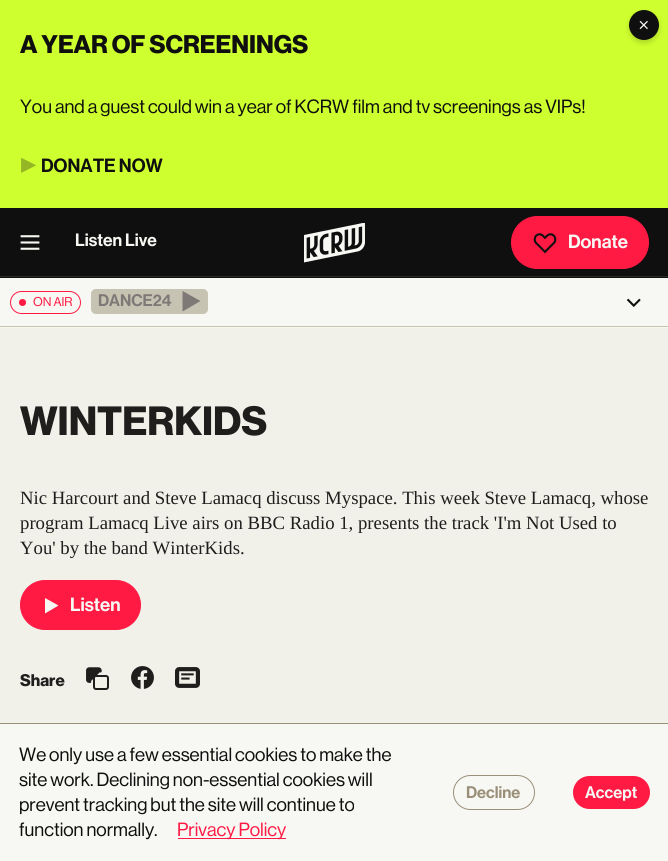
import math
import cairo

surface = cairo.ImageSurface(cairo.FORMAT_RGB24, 668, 861)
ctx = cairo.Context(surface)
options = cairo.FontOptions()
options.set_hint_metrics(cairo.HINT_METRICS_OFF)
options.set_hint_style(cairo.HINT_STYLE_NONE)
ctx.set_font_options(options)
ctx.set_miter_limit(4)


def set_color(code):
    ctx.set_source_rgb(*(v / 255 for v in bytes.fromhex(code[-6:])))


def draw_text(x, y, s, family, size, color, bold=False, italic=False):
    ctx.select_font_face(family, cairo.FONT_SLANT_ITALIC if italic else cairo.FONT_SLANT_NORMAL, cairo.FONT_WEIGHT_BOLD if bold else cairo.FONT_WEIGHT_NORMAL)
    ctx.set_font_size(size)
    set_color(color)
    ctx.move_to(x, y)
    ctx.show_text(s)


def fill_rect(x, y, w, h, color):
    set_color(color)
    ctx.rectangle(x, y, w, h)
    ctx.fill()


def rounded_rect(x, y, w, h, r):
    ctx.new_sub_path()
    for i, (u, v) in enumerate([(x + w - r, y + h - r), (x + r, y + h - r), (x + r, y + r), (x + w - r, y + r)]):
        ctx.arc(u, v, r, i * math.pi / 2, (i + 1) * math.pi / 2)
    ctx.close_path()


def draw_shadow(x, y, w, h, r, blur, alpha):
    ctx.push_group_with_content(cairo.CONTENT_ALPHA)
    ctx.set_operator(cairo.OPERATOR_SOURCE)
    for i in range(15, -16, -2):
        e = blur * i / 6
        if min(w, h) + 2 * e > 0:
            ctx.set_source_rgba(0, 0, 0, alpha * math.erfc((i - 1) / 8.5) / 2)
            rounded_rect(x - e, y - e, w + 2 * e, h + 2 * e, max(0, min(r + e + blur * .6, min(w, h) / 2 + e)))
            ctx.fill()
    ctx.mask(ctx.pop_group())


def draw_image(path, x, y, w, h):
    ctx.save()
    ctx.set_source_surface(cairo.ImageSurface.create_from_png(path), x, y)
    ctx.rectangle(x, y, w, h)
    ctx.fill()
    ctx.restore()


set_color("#f1f1ea")
ctx.paint()
fill_rect(0, 0, 668, 208, "#ceff2e")
draw_text(20, 53, "A YEAR OF SCREENINGS", "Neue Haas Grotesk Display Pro", 25, "#0f0f0f", bold=True)
set_color("#0a0a0a")
draw_shadow(629, 13, 30, 30, 15, 2.5, 0.16)
set_color("#0f0f0f")
ctx.arc(644, 25, 15, 0, 2 * math.pi)
ctx.fill()
draw_image("assets/img1.png", 639, 20, 9, 10)
draw_text(20, 113, "You and a guest could win a year of KCRW film and tv screenings as VIPs!", "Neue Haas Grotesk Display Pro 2 Medium", 18.75, "#0f0f0f")
draw_text(21, 173, "▸", "DejaVu Sans", 28, "#95b725", bold=True)
draw_text(41, 172, "DONATE NOW", "Neue Haas Grotesk Display Pro Medium", 18.75, "#0f0f0f")
fill_rect(0, 208, 668, 70, "#0f0f0f")
fill_rect(0, 276, 668, 1, "#2b2b2a")
draw_image("assets/img2.png", 20, 235, 20, 15)
draw_text(75, 246, "Listen Live", "Neue Haas Grotesk Display Pro Medium", 17.5, "#f7f7f3")
draw_image("assets/img3.png", 304, 223, 61, 40)
set_color("#ff1a44")
rounded_rect(511.5, 216.5, 137, 52, 26)
ctx.fill_preserve()
ctx.set_line_width(1)
ctx.stroke()
draw_image("assets/img4.png", 533, 233, 24, 21)
draw_text(568, 248, "Donate", "Neue Haas Grotesk Display Pro Medium", 18.75, "#f7f7f3")
fill_rect(0, 278, 668, 50, "#f7f7f3")
fill_rect(0, 326, 668, 1, "#c7c4ae")
rounded_rect(10.5, 291.5, 70, 22, 11)
set_color("#ff1a44")
ctx.stroke()
ctx.arc(22.5, 302.5, 3.5, 0, 2 * math.pi)
ctx.fill()
draw_text(33, 306, "ON AIR", "Neue Haas Grotesk Display Pro 2 Medium", 12.5, "#ff1a44")
set_color("#efefef")
rounded_rect(91, 289, 117, 25, 5)
ctx.fill()
ctx.set_source_rgba(0.714, 0.694, 0.604, 0.7)
rounded_rect(91, 289, 117, 25, 5)
ctx.fill()
draw_text(98, 306, "DANCE24", "Neue Haas Grotesk Display Pro Medium", 16.5, "#7e7976")
ctx.new_path()
ctx.move_to(182.5, 291)
ctx.line_to(182.5, 311.5)
ctx.line_to(200.5, 301)
ctx.close_path()
ctx.fill()
draw_image("assets/img5.png", 626, 298, 15, 9)
draw_text(20, 435, "WINTERKIDS", "Neue Haas Grotesk Display Pro", 40, "#201e1d", bold=True)
draw_text(20, 504, "Nic Harcourt and Steve Lamacq discuss Myspace. This week Steve Lamacq, whose", "Liberation Serif", 18.75, "#201e1d")
draw_text(20, 529, "program Lamacq Live airs on BBC Radio 1, presents the track 'I'm Not Used to", "Liberation Serif", 18.75, "#201e1d")
draw_text(20, 554, "You' by the band WinterKids.", "Liberation Serif", 18.75, "#201e1d")
set_color("#ff1a44")
rounded_rect(20.5, 580.5, 120, 49, 24.5)
ctx.fill_preserve()
ctx.stroke()
set_color("#f7f7f3")
ctx.new_path()
ctx.move_to(45, 598)
ctx.line_to(45, 613.5)
ctx.line_to(58.5, 605.5)
ctx.close_path()
ctx.fill()
draw_text(70, 611, "Listen", "Neue Haas Grotesk Display Pro Medium", 18.75, "#f7f7f3")
draw_text(20, 686, "Share", "Neue Haas Grotesk Display Pro", 16.5, "#201e1d", bold=True)
draw_image("assets/img6.png", 86, 667, 23, 23)
draw_image("assets/img7.png", 131, 666, 23, 23)
draw_image("assets/img8.png", 175, 667, 25, 21)
fill_rect(0, 724, 668, 137, "#f7f7f3")
fill_rect(0, 723, 668, 1, "#9a9079")
draw_text(19, 761, "We only use a few essential cookies to make the", "Neue Haas Grotesk Display Pro 2 Medium", 18.75, "#0f0f0f")
draw_text(19, 786, "site work. Declining non-essential cookies will", "Neue Haas Grotesk Display Pro 2 Medium", 18.75, "#0f0f0f")
draw_text(19, 811, "prevent tracking but the site will continue to", "Neue Haas Grotesk Display Pro 2 Medium", 18.75, "#0f0f0f")
draw_text(19, 836, "function normally.", "Neue Haas Grotesk Display Pro 2 Medium", 18.75, "#0f0f0f")
fill_rect(178, 838, 108, 1, "#ff1a44")
draw_text(177, 836, "Privacy Policy", "Neue Haas Grotesk Display Pro 2 Medium", 18.75, "#ff1a44")
rounded_rect(453.5, 775.5, 81, 34, 17)
set_color("#9a9079")
ctx.stroke()
draw_text(466, 798, "Decline", "Neue Haas Grotesk Display Pro Medium", 16.5, "#9a9079")
set_color("#ff1a44")
rounded_rect(573, 776, 77, 33, 16.5)
ctx.fill()
draw_text(585, 798, "Accept", "Neue Haas Grotesk Display Pro Medium", 16.5, "#f7f7f3")
surface.write_to_png("output.png")
